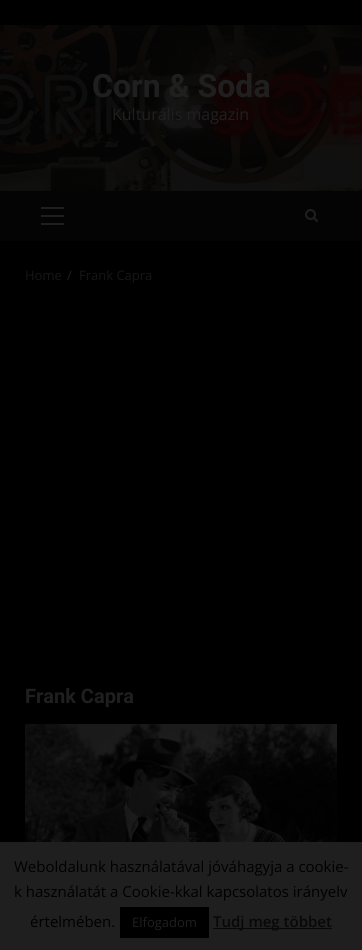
import math
import cairo

surface = cairo.ImageSurface(cairo.FORMAT_RGB24, 362, 950)
ctx = cairo.Context(surface)
options = cairo.FontOptions()
options.set_hint_metrics(cairo.HINT_METRICS_OFF)
options.set_hint_style(cairo.HINT_STYLE_NONE)
ctx.set_font_options(options)
ctx.set_miter_limit(4)


def set_color(code):
    ctx.set_source_rgb(*(v / 255 for v in bytes.fromhex(code[-6:])))


def draw_text(x, y, s, family, size, color, bold=False, italic=False):
    ctx.select_font_face(family, cairo.FONT_SLANT_ITALIC if italic else cairo.FONT_SLANT_NORMAL, cairo.FONT_WEIGHT_BOLD if bold else cairo.FONT_WEIGHT_NORMAL)
    ctx.set_font_size(size)
    set_color(color)
    ctx.move_to(x, y)
    ctx.show_text(s)


def fill_rect(x, y, w, h, color):
    set_color(color)
    ctx.rectangle(x, y, w, h)
    ctx.fill()


def draw_image(path, x, y, w, h):
    ctx.save()
    ctx.set_source_surface(cairo.ImageSurface.create_from_png(path), x, y)
    ctx.rectangle(x, y, w, h)
    ctx.fill()
    ctx.restore()


set_color("#000000")
ctx.paint()
draw_image("assets/img1.png", 0, 25, 362, 166)
draw_text(92, 97, "Corn & Soda", "Roboto", 32, "#1f1f1f", bold=True)
draw_text(112, 120, "Kulturális magazin", "Open Sans", 16, "#1f1f1f")
fill_rect(0, 191, 362, 50, "#040404")
fill_rect(41, 215, 23, 2, "#1f1f1f")
fill_rect(41, 207, 23, 2, "#1f1f1f")
fill_rect(41, 223, 23, 2, "#1f1f1f")
draw_image("assets/img2.png", 305, 209, 13, 13)
draw_text(25, 280, "Home", "Open Sans", 13, "#161616")
draw_text(67, 280, "/", "Open Sans", 13, "#1f1f1f")
draw_text(79, 280, "Frank Capra", "Open Sans", 13, "#161616")
draw_text(25, 703, "Frank Capra", "Roboto", 20, "#1f1f1f", bold=True)
draw_image("assets/img3.png", 25, 724, 312, 118)
fill_rect(0, 842, 362, 108, "#1f1f1f")
draw_text(14, 872, "Weboldalunk használatával jóváhagyja a cookie-", "Open Sans", 15, "#000000")
draw_text(14, 897, "k használatát a Cookie-kkal kapcsolatos irányelv", "Open Sans", 15, "#000000")
draw_text(30, 927, "értelmében.", "Open Sans", 15, "#000000")
fill_rect(120, 907, 89, 31, "#000000")
draw_text(132, 927, "Elfogadom", "Open Sans", 13, "#1f1f1f")
fill_rect(213, 928, 119, 1, "#080808")
draw_text(213, 927, "Tudj meg többet", "Open Sans SemiBold", 15, "#080808")
surface.write_to_png("output.png")
